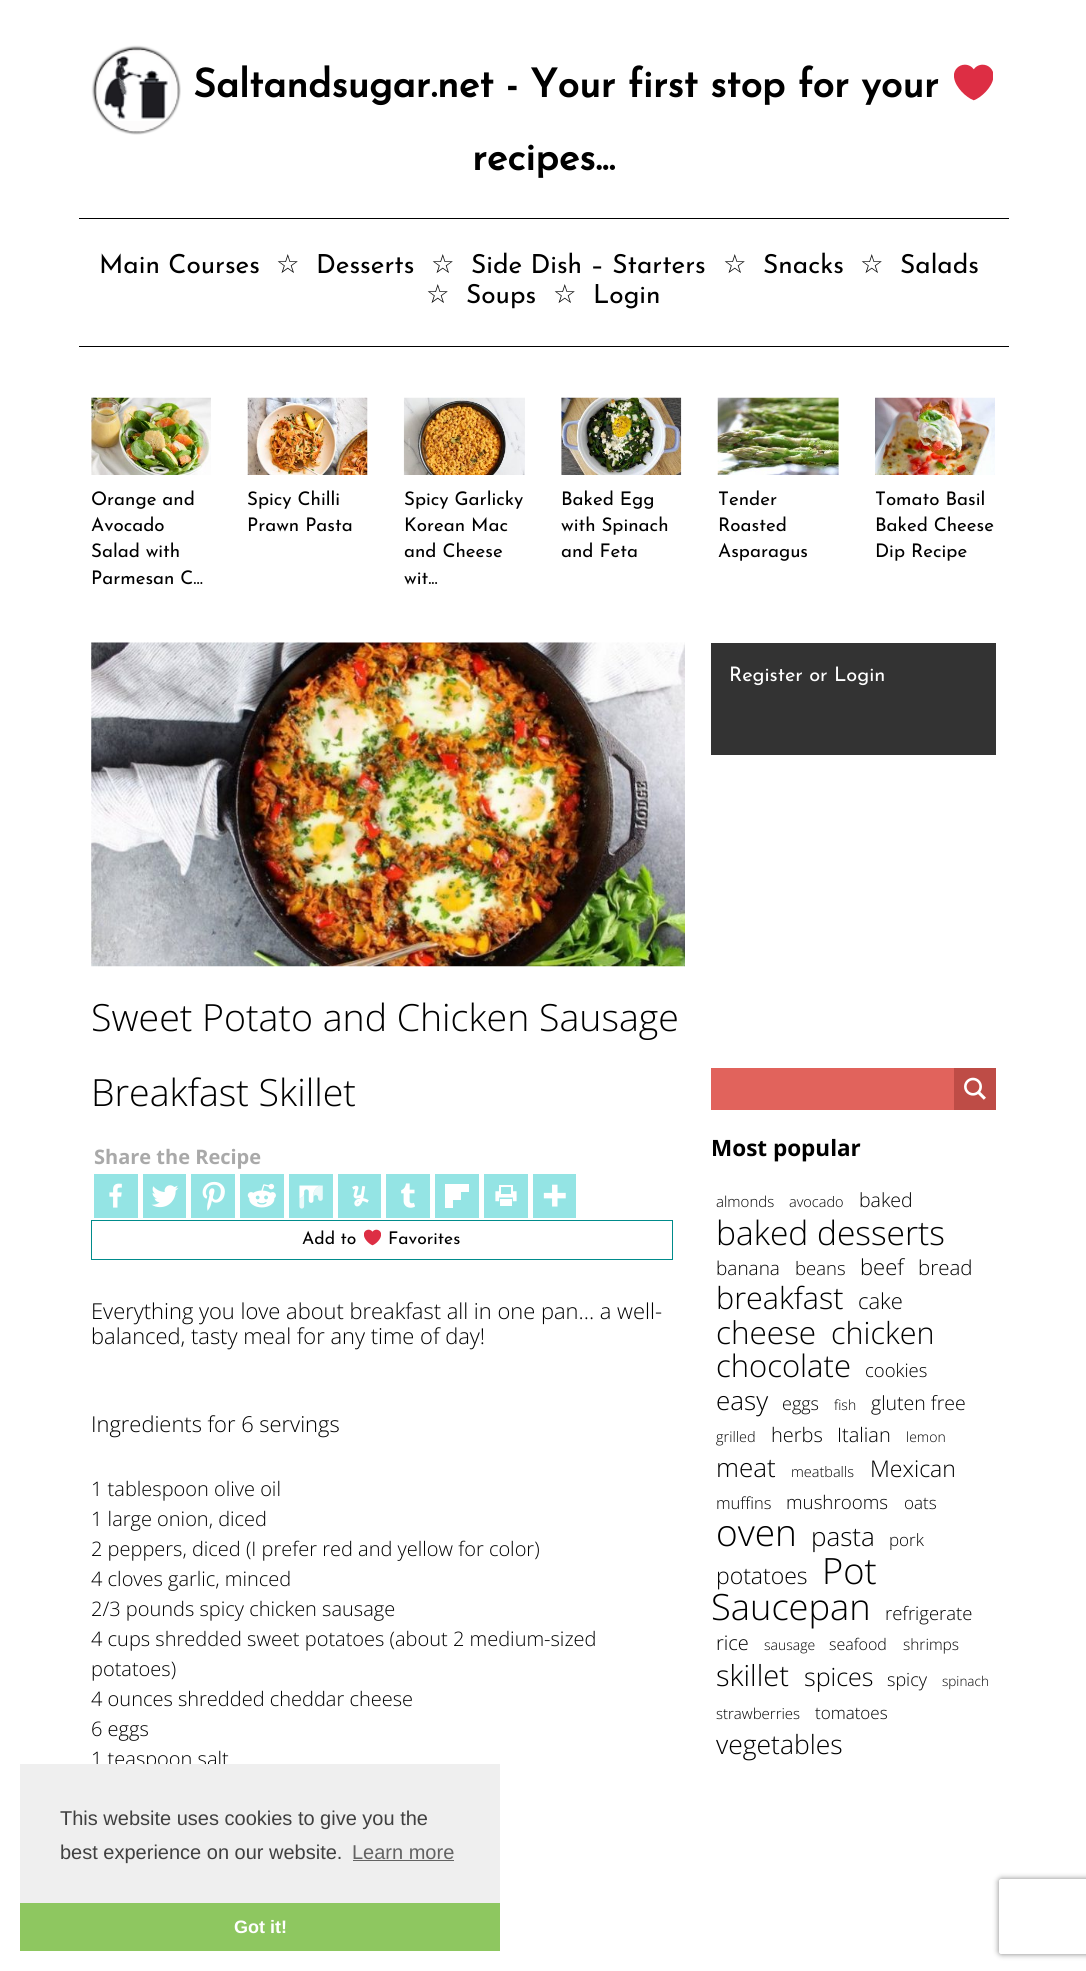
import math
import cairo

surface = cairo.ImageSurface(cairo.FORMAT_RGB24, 1086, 1971)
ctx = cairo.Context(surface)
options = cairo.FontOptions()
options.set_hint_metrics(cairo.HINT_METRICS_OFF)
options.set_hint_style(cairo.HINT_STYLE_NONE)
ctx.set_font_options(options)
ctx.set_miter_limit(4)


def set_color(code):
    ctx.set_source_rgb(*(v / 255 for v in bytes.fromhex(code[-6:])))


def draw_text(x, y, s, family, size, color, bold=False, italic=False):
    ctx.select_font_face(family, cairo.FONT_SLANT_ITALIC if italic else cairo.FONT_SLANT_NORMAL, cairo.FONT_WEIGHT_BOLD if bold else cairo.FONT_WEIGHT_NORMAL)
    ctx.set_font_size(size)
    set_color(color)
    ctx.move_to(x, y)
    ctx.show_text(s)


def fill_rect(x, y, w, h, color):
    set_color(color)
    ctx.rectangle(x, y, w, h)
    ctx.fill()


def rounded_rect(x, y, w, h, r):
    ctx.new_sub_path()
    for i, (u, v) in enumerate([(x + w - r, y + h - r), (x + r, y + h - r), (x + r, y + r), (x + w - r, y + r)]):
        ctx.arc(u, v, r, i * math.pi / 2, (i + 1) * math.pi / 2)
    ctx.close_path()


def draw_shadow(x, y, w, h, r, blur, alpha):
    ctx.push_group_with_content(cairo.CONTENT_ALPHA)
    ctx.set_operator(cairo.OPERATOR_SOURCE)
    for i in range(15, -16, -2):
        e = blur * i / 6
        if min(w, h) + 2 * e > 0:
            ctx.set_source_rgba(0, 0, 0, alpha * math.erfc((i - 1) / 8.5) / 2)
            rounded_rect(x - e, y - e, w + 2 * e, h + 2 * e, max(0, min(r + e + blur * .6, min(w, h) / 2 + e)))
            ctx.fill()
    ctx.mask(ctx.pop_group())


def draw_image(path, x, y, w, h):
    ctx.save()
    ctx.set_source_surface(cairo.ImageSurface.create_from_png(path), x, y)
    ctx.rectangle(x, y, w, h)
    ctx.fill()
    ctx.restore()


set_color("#ffffff")
ctx.paint()
draw_image("assets/img1.png", 91, 45, 90, 90)
draw_text(193, 97, "Saltandsugar.net - Your first stop for your", "Josefin Sans", 39.4, "#000000", bold=True)
draw_image("assets/img2.png", 954, 64, 39, 37)
draw_text(472, 170, "recipes...", "Josefin Sans", 39.4, "#000000", bold=True)
fill_rect(79, 218, 930, 1, "#000000")
fill_rect(79, 346, 930, 1, "#000000")
draw_text(99, 273, "Main Courses", "Josefin Sans Thin", 26.25, "#000000")
draw_text(276, 273, "☆", "DejaVu Sans", 26.25, "#000000")
draw_text(316, 273, "Desserts", "Josefin Sans Thin", 26.25, "#000000")
draw_text(431, 273, "☆", "DejaVu Sans", 26.25, "#000000")
draw_text(471, 273, "Side Dish – Starters", "Josefin Sans Thin", 26.25, "#000000")
draw_text(723, 273, "☆", "DejaVu Sans", 26.25, "#000000")
draw_text(763, 273, "Snacks", "Josefin Sans Thin", 26.25, "#000000")
draw_text(860, 273, "☆", "DejaVu Sans", 26.25, "#000000")
draw_text(900, 273, "Salads", "Josefin Sans Thin", 26.25, "#000000")
draw_text(426, 303, "☆", "DejaVu Sans", 26.25, "#000000")
draw_text(466, 303, "Soups", "Josefin Sans Thin", 26.25, "#000000")
draw_text(553, 303, "☆", "DejaVu Sans", 26.25, "#000000")
draw_text(593, 303, "Login", "Josefin Sans Thin", 26.25, "#000000")
draw_image("assets/img3.png", 91, 397, 120, 78)
draw_text(91, 505, "Orange and", "Josefin Sans Thin", 18.75, "#000000")
draw_text(91, 531, "Avocado", "Josefin Sans Thin", 18.75, "#000000")
draw_text(91, 557, "Salad with", "Josefin Sans Thin", 18.75, "#000000")
draw_text(91, 584, "Parmesan C...", "Josefin Sans Thin", 18.75, "#000000")
draw_image("assets/img4.png", 247, 397, 121, 78)
draw_text(247, 505, "Spicy Chilli", "Josefin Sans Thin", 18.75, "#000000")
draw_text(247, 531, "Prawn Pasta", "Josefin Sans Thin", 18.75, "#000000")
draw_image("assets/img5.png", 403, 397, 122, 78)
draw_text(404, 505, "Spicy Garlicky", "Josefin Sans Thin", 18.75, "#000000")
draw_text(404, 531, "Korean Mac", "Josefin Sans Thin", 18.75, "#000000")
draw_text(404, 557, "and Cheese", "Josefin Sans Thin", 18.75, "#000000")
draw_text(404, 584, "wit...", "Josefin Sans Thin", 18.75, "#000000")
draw_image("assets/img6.png", 561, 397, 121, 78)
draw_text(561, 505, "Baked Egg", "Josefin Sans Thin", 18.75, "#000000")
draw_text(561, 531, "with Spinach", "Josefin Sans Thin", 18.75, "#000000")
draw_text(561, 557, "and Feta", "Josefin Sans Thin", 18.75, "#000000")
draw_image("assets/img7.png", 717, 397, 122, 78)
draw_text(718, 505, "Tender", "Josefin Sans Thin", 18.75, "#000000")
draw_text(718, 531, "Roasted", "Josefin Sans Thin", 18.75, "#000000")
draw_text(718, 557, "Asparagus", "Josefin Sans Thin", 18.75, "#000000")
draw_image("assets/img8.png", 875, 397, 120, 78)
draw_text(875, 505, "Tomato Basil", "Josefin Sans Thin", 18.75, "#000000")
draw_text(875, 531, "Baked Cheese", "Josefin Sans Thin", 18.75, "#000000")
draw_text(875, 557, "Dip Recipe", "Josefin Sans Thin", 18.75, "#000000")
draw_image("assets/img9.png", 91, 642, 594, 325)
draw_text(91, 1031, "Sweet Potato and Chicken Sausage", "Open Sans Light", 37.5, "#000000")
draw_text(91, 1106, "Breakfast Skillet", "Open Sans Light", 37.5, "#000000")
draw_text(94, 1164, "Share the Recipe", "Open Sans", 20, "#a9a9a9", bold=True)
fill_rect(94, 1174, 44, 44, "#94e4e4")
draw_image("assets/img10.png", 109, 1183, 13, 25)
fill_rect(143, 1174, 43, 44, "#94e4e4")
draw_image("assets/img11.png", 151, 1185, 28, 23)
fill_rect(191, 1174, 44, 44, "#94e4e4")
draw_image("assets/img12.png", 202, 1181, 23, 30)
fill_rect(240, 1174, 44, 44, "#94e4e4")
draw_image("assets/img13.png", 247, 1183, 29, 25)
fill_rect(289, 1174, 44, 44, "#94e4e4")
draw_image("assets/img14.png", 299, 1185, 24, 24)
fill_rect(338, 1174, 43, 44, "#94e4e4")
draw_image("assets/img15.png", 352, 1185, 17, 22)
fill_rect(386, 1174, 44, 44, "#94e4e4")
draw_image("assets/img16.png", 401, 1183, 14, 25)
fill_rect(435, 1174, 44, 44, "#94e4e4")
fill_rect(453, 1192, 8, 8, "#ffffff")
fill_rect(445, 1184, 24, 8, "#ffffff")
fill_rect(445, 1184, 8, 24, "#ffffff")
fill_rect(484, 1174, 44, 44, "#94e4e4")
draw_image("assets/img17.png", 495, 1185, 22, 21)
fill_rect(533, 1174, 43, 44, "#94e4e4")
draw_image("assets/img18.png", 543, 1184, 23, 23)
ctx.rectangle(91.5, 1220.5, 581, 39)
set_color("#008b8b")
ctx.set_line_width(1)
ctx.stroke()
draw_text(302, 1244, "Add to", "Josefin Sans Thin", 17.5, "#000000")
draw_image("assets/img19.png", 364, 1229, 17, 17)
draw_text(388, 1244, "Favorites", "Josefin Sans Thin", 17.5, "#000000")
draw_text(91, 1319, "Everything you love about breakfast all in one pan… a well-", "Open Sans Light", 21.9, "#000000")
draw_text(91, 1344, "balanced, tasty meal for any time of day!", "Open Sans Light", 21.9, "#000000")
draw_text(91, 1432, "Ingredients for 6 servings", "Open Sans Light", 21.9, "#000000")
draw_text(91, 1496, "1 tablespoon olive oil", "Open Sans Light", 20, "#000000")
draw_text(91, 1526, "1 large onion, diced", "Open Sans Light", 20, "#000000")
draw_text(91, 1556, "2 peppers, diced (I prefer red and yellow for color)", "Open Sans Light", 20, "#000000")
draw_text(91, 1586, "4 cloves garlic, minced", "Open Sans Light", 20, "#000000")
draw_text(91, 1616, "2/3 pounds spicy chicken sausage", "Open Sans Light", 20, "#000000")
draw_text(91, 1646, "4 cups shredded sweet potatoes (about 2 medium-sized", "Open Sans Light", 20, "#000000")
draw_text(91, 1676, "potatoes)", "Open Sans Light", 20, "#000000")
draw_text(91, 1706, "4 ounces shredded cheddar cheese", "Open Sans Light", 20, "#000000")
draw_text(91, 1736, "6 eggs", "Open Sans Light", 20, "#000000")
draw_text(91, 1766, "1 teaspoon salt", "Open Sans Light", 20, "#000000")
fill_rect(711, 643, 285, 112, "#333333")
draw_text(729, 681, "Register or Login", "Josefin Sans Thin", 20, "#ffffff")
fill_rect(711, 1068, 243, 42, "#e1635c")
fill_rect(954, 1068, 42, 42, "#be4c46")
draw_image("assets/img20.png", 964, 1077, 22, 23)
draw_text(711, 1156, "Most popular", "Open Sans", 22.5, "#000000", bold=True)
draw_text(716, 1207, "almonds", "Open Sans Light", 15, "#000000")
draw_text(789, 1207, "avocado", "Open Sans Light", 14.5, "#000000")
draw_text(859, 1207, "baked", "Open Sans Light", 19.5, "#000000")
draw_text(716, 1245, "baked desserts", "Open Sans Light", 33.5, "#000000")
draw_text(716, 1275, "banana", "Open Sans Light", 19, "#000000")
draw_text(795, 1275, "beans", "Open Sans Light", 18.5, "#000000")
draw_text(860, 1275, "beef", "Open Sans Light", 22, "#000000")
draw_text(918, 1275, "bread", "Open Sans Light", 20.5, "#000000")
draw_text(716, 1309, "breakfast", "Open Sans Light", 30.5, "#000000")
draw_text(858, 1309, "cake", "Open Sans Light", 22, "#000000")
draw_text(716, 1344, "cheese", "Open Sans Light", 31.5, "#000000")
draw_text(831, 1344, "chicken", "Open Sans Light", 30.5, "#000000")
draw_text(716, 1377, "chocolate", "Open Sans Light", 31, "#000000")
draw_text(865, 1377, "cookies", "Open Sans Light", 18.5, "#000000")
draw_text(716, 1410, "easy", "Open Sans Light", 26, "#000000")
draw_text(782, 1410, "eggs", "Open Sans Light", 18, "#000000")
draw_text(834, 1410, "fish", "Open Sans Light", 14, "#000000")
draw_text(871, 1410, "gluten free", "Open Sans Light", 19.5, "#000000")
draw_text(716, 1442, "grilled", "Open Sans Light", 14.5, "#000000")
draw_text(771, 1442, "herbs", "Open Sans Light", 20, "#000000")
draw_text(837, 1442, "Italian", "Open Sans Light", 20, "#000000")
draw_text(906, 1442, "lemon", "Open Sans Light", 14, "#000000")
draw_text(716, 1477, "meat", "Open Sans Light", 26, "#000000")
draw_text(791, 1477, "meatballs", "Open Sans Light", 14.5, "#000000")
draw_text(870, 1477, "Mexican", "Open Sans Light", 23, "#000000")
draw_text(716, 1509, "muffins", "Open Sans Light", 16.5, "#000000")
draw_text(786, 1509, "mushrooms", "Open Sans Light", 18.75, "#000000")
draw_text(904, 1509, "oats", "Open Sans Light", 17, "#000000")
draw_text(716, 1546, "oven", "Open Sans Light", 37, "#000000")
draw_text(811, 1546, "pasta", "Open Sans Light", 26, "#000000")
draw_text(889, 1546, "pork", "Open Sans Light", 17, "#000000")
draw_text(716, 1584, "potatoes", "Open Sans Light", 23, "#000000")
draw_text(822, 1584, "Pot", "Open Sans Light", 36.25, "#000000")
draw_text(711, 1620, "Saucepan", "Open Sans Light", 36.25, "#000000")
draw_text(885, 1620, "refrigerate", "Open Sans Light", 18.5, "#000000")
draw_text(716, 1650, "rice", "Open Sans Light", 20, "#000000")
draw_text(764, 1650, "sausage", "Open Sans Light", 14, "#000000")
draw_text(829, 1650, "seafood", "Open Sans Light", 16, "#000000")
draw_text(903, 1650, "shrimps", "Open Sans Light", 15.5, "#000000")
draw_text(716, 1686, "skillet", "Open Sans Light", 29, "#000000")
draw_text(804, 1686, "spices", "Open Sans Light", 25, "#000000")
draw_text(887, 1686, "spicy", "Open Sans Light", 18, "#000000")
draw_text(942, 1686, "spinach", "Open Sans Light", 13.5, "#000000")
draw_text(716, 1719, "strawberries", "Open Sans Light", 15, "#000000")
draw_text(815, 1719, "tomatoes", "Open Sans Light", 17, "#000000")
draw_text(716, 1754, "vegetables", "Open Sans Light", 26.5, "#000000")
fill_rect(20, 1764, 480, 139, "#efefef")
draw_text(60, 1825, "This website uses cookies to give you the", "Liberation Sans", 20, "#404040")
draw_text(60, 1859, "best experience on our website.", "Liberation Sans", 20, "#404040")
draw_text(352, 1859, "Learn more", "Liberation Sans", 20, "#636363")
fill_rect(353, 1860, 101, 1, "#636363")
fill_rect(20, 1903, 480, 48, "#8ec760")
draw_text(234, 1933, "Got it!", "Liberation Sans", 18, "#ffffff", bold=True)
ctx.save()
ctx.set_fill_rule(cairo.FILL_RULE_EVEN_ODD)
ctx.new_path()
ctx.move_to(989, 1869)
ctx.line_to(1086, 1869)
ctx.line_to(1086, 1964)
ctx.line_to(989, 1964)
ctx.close_path()
ctx.move_to(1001.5, 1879)
ctx.line_to(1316.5, 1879)
ctx.curve_to(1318, 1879, 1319, 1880, 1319, 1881.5)
ctx.line_to(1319, 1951.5)
ctx.curve_to(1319, 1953, 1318, 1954, 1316.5, 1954)
ctx.line_to(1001.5, 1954)
ctx.curve_to(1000, 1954, 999, 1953, 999, 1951.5)
ctx.line_to(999, 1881.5)
ctx.curve_to(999, 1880, 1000, 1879, 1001.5, 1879)
ctx.close_path()
ctx.clip()
set_color("#808080")
draw_shadow(999, 1879, 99, 75, 2.5, 3, 1)
ctx.restore()
surface.write_to_png("output.png")
